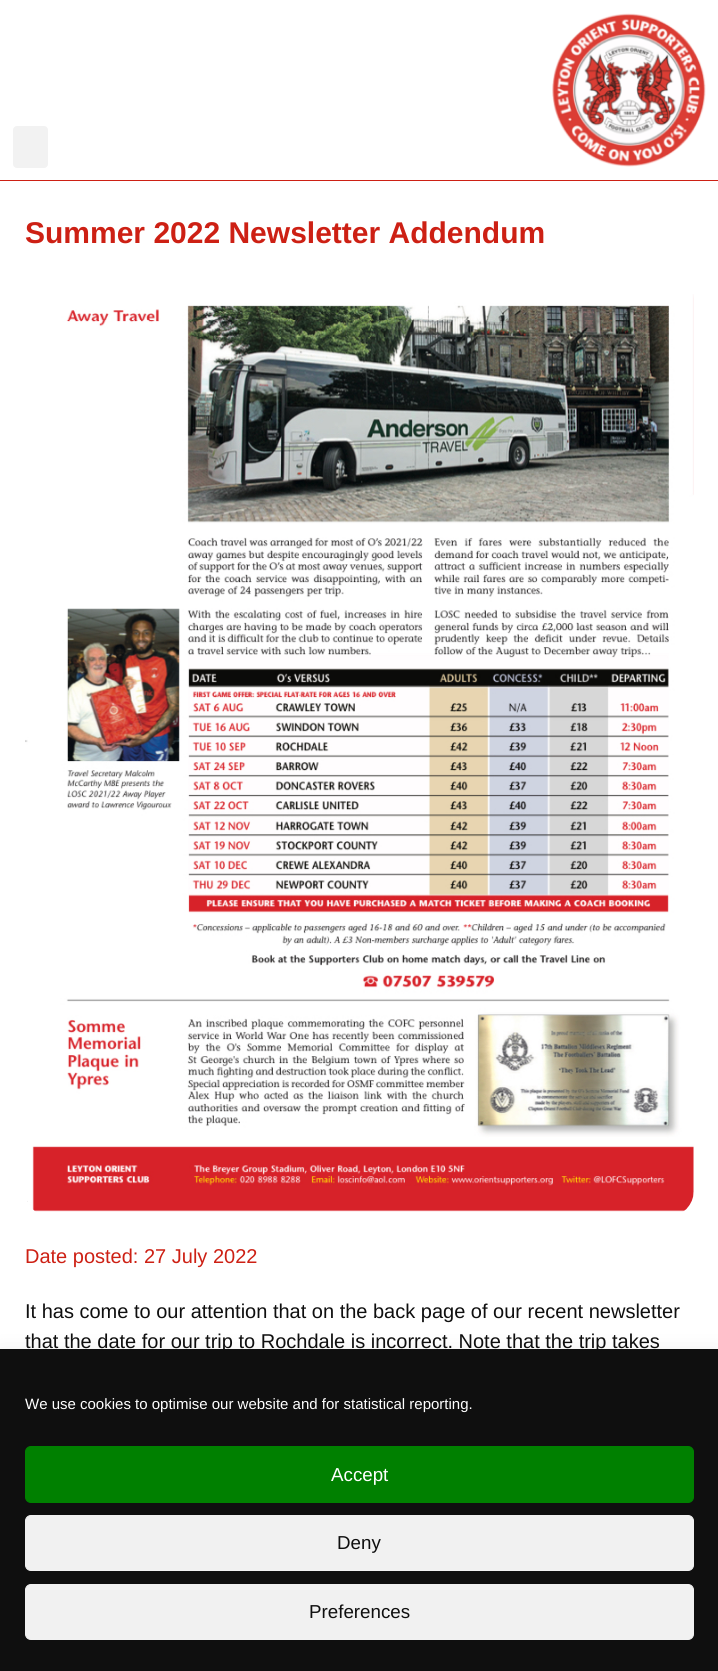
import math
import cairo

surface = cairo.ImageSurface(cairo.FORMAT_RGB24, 718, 1671)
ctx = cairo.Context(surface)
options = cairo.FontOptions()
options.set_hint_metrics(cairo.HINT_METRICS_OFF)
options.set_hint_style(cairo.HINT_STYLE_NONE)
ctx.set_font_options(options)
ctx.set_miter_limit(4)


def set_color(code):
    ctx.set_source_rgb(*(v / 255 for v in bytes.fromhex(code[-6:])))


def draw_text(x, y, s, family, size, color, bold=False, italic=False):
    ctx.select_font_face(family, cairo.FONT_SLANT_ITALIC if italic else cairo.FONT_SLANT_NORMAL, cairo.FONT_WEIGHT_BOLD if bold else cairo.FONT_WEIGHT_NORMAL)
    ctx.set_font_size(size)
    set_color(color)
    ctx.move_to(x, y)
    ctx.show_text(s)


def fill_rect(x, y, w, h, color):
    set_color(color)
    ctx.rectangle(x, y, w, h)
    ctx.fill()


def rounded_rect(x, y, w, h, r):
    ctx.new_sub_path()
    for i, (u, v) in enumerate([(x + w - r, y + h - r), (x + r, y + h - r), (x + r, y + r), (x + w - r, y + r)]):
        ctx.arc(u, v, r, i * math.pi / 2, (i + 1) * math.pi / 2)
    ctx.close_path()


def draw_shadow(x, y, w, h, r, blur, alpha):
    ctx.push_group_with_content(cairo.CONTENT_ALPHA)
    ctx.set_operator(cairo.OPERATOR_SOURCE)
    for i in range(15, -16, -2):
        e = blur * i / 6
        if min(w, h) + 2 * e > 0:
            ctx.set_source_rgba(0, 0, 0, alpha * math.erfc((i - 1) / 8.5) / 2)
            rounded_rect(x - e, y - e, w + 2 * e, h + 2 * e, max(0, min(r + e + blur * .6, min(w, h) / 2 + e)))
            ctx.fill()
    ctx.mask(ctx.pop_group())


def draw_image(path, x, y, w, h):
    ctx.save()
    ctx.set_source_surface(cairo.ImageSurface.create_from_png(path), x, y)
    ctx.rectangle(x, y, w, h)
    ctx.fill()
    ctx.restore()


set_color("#ffffff")
ctx.paint()
fill_rect(0, 180, 718, 1, "#cd2014")
set_color("#f2f2f2")
rounded_rect(13, 126, 35, 42, 4)
ctx.fill()
draw_image("assets/img1.png", 552, 13, 154, 154)
draw_text(25, 243, "Summer 2022 Newsletter Addendum", "Liberation Sans", 30, "#cd2014", bold=True)
draw_image("assets/img2.png", 25, 294, 669, 918)
draw_text(25, 1263, "Date posted: 27 July 2022", "Liberation Sans", 20, "#cd2014")
draw_text(25, 1318, "It has come to our attention that on the back page of our recent newsletter", "Liberation Sans", 20, "#0f0f0f")
draw_text(25, 1348, "that the date for our trip to Rochdale is incorrect. Note that the trip takes", "Liberation Sans", 20, "#0f0f0f")
set_color("#000000")
draw_shadow(0, 1361, 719, 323, 0, 12.5, 0.19)
fill_rect(0, 1349, 718, 322, "#0f0f0f")
draw_text(25, 1409, "We use cookies to optimise our website and for statistical reporting.", "Liberation Sans", 15, "#ffffff")
set_color("#008000")
rounded_rect(25.5, 1446.5, 668, 56, 5.5)
ctx.fill_preserve()
ctx.set_line_width(1)
ctx.stroke()
draw_text(331, 1481, "Accept", "Liberation Sans", 18.75, "#ffffff")
set_color("#f1f1f1")
rounded_rect(25.5, 1515.5, 668, 55, 5.5)
ctx.fill_preserve()
ctx.stroke()
draw_text(337, 1549, "Deny", "Liberation Sans", 18.75, "#0f0f0f")
set_color("#f1f1f1")
rounded_rect(25.5, 1584.5, 668, 55, 5.5)
ctx.fill_preserve()
ctx.stroke()
draw_text(309, 1618, "Preferences", "Liberation Sans", 18.75, "#0f0f0f")
surface.write_to_png("output.png")
